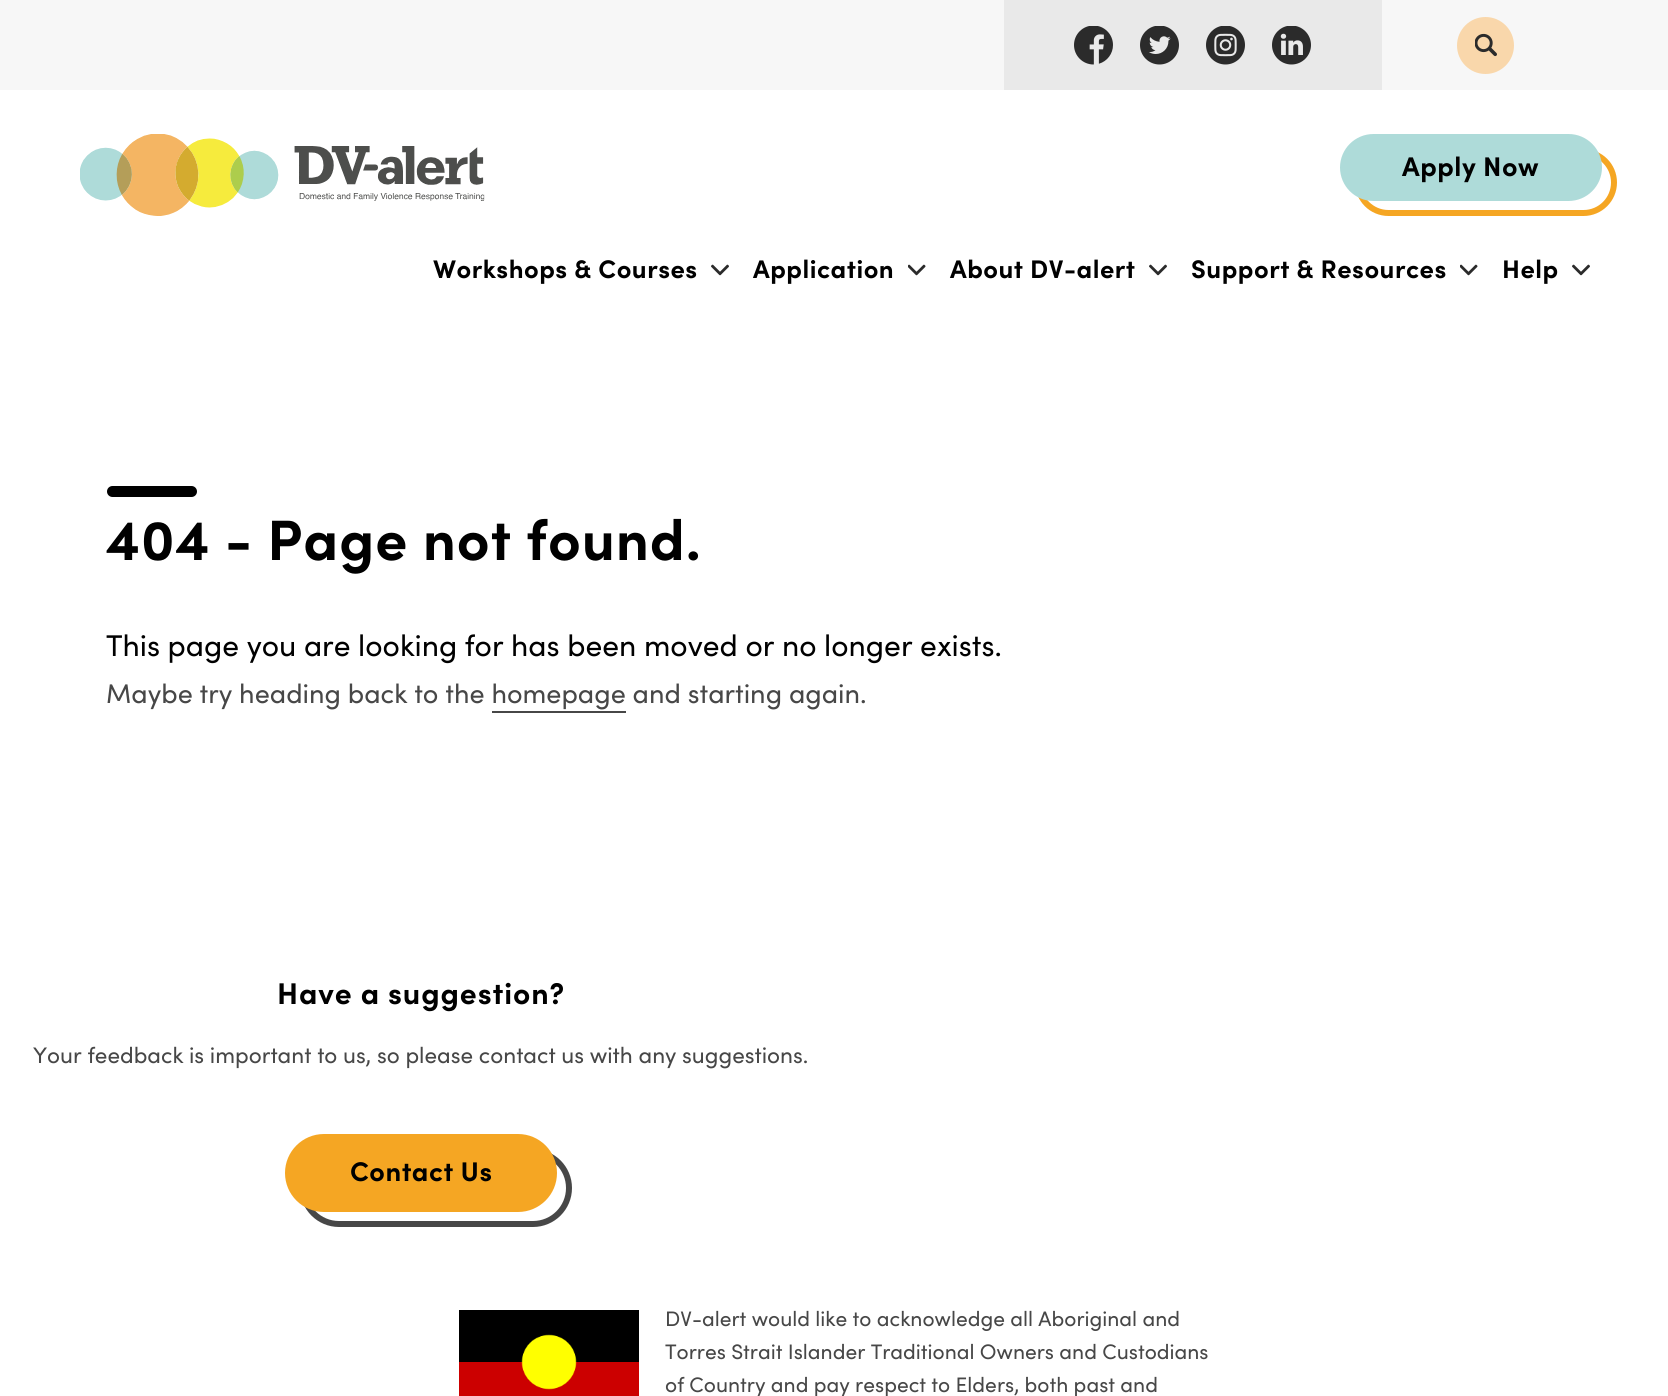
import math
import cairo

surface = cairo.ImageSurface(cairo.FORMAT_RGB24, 1668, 1396)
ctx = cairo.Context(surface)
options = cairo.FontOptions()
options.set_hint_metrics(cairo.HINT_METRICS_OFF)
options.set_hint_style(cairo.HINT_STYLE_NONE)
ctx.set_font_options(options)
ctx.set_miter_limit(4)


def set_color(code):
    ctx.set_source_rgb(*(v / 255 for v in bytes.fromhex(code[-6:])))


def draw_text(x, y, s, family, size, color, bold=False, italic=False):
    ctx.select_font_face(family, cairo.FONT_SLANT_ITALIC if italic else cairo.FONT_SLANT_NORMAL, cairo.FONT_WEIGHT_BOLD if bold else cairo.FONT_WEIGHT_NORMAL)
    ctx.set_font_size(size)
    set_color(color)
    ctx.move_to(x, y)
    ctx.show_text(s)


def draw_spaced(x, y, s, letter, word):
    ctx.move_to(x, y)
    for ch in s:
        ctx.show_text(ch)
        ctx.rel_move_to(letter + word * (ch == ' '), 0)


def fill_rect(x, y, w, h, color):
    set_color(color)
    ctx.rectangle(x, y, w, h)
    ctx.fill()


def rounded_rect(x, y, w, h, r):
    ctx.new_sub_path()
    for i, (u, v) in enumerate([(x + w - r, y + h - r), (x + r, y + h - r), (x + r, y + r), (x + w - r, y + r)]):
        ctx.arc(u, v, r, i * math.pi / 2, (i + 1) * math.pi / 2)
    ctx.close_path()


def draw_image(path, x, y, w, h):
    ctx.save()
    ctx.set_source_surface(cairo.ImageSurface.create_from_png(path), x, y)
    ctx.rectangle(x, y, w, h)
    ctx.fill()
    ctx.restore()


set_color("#ffffff")
ctx.paint()
fill_rect(0, 0, 1668, 90, "#f7f7f7")
fill_rect(1004, 0, 378, 90, "#e9e9e9")
draw_image("assets/img1.png", 1074, 26, 39, 39)
draw_image("assets/img2.png", 1140, 26, 39, 39)
draw_image("assets/img3.png", 1206, 26, 39, 39)
draw_image("assets/img4.png", 1272, 26, 39, 39)
set_color("#f9d7ab")
ctx.arc(1485.5, 45.5, 28.5, 0, 2 * math.pi)
ctx.fill()
draw_image("assets/img5.png", 1475, 33, 22, 24)
draw_image("assets/img6.png", 80, 134, 405, 82)
rounded_rect(1358, 152, 256, 61, 30.5)
set_color("#f5a623")
ctx.set_line_width(6)
ctx.stroke()
set_color("#aedbd9")
rounded_rect(1343, 137, 256, 61, 30.5)
ctx.fill_preserve()
ctx.stroke()
ctx.select_font_face("Sofia", cairo.FONT_SLANT_NORMAL, cairo.FONT_WEIGHT_BOLD)
ctx.set_font_size(27)
set_color("#000000")
draw_spaced(1402, 176, "Apply Now", 0.5, 0)
ctx.set_font_size(25.5)
draw_spaced(433, 278, "Workshops & Courses", 0.5, 0)
draw_image("assets/img7.png", 711, 264, 18, 12)
draw_spaced(753, 278, "Application", 0.5, 0)
draw_image("assets/img8.png", 908, 264, 18, 12)
draw_spaced(950, 278, "About DV-alert", 0.5, 0)
draw_image("assets/img7.png", 1149, 264, 18, 12)
draw_spaced(1191, 278, "Support & Resources", 0.5, 0)
draw_image("assets/img8.png", 1460, 264, 18, 12)
draw_spaced(1502, 278, "Help", 0.5, 0)
draw_image("assets/img7.png", 1572, 264, 18, 12)
rounded_rect(107, 486, 90, 11, 5.5)
ctx.fill()
ctx.set_font_size(57)
draw_spaced(106, 560, "404 - Page not found.", 0.9, 0)
draw_text(106, 656, "This page you are looking for has been moved or no longer exists.", "Sofia", 30, "#000000")
draw_text(106, 703, "Maybe try heading back to the homepage and starting again.", "Sofia", 27, "#474747")
fill_rect(492, 711, 134, 2, "#474747")
ctx.select_font_face("Sofia", cairo.FONT_SLANT_NORMAL, cairo.FONT_WEIGHT_BOLD)
ctx.set_font_size(30)
set_color("#000000")
draw_spaced(277, 1004, "Have a suggestion?", 0.9, 0)
draw_text(33, 1063, "Your feedback is important to us, so please contact us with any suggestions.", "Sofia", 22.5, "#474747")
rounded_rect(303, 1152, 266, 72, 36)
ctx.stroke()
set_color("#f5a623")
rounded_rect(288, 1137, 266, 72, 36)
ctx.fill_preserve()
ctx.stroke()
ctx.select_font_face("Sofia", cairo.FONT_SLANT_NORMAL, cairo.FONT_WEIGHT_BOLD)
ctx.set_font_size(27)
set_color("#000000")
draw_spaced(350, 1181, "Contact Us", 0.5, 0)
draw_image("assets/img9.png", 459, 1310, 180, 86)
draw_text(665, 1326, "DV-alert would like to acknowledge all Aboriginal and", "Sofia", 21, "#474747")
draw_text(665, 1359, "Torres Strait Islander Traditional Owners and Custodians", "Sofia", 21, "#474747")
draw_text(665, 1392, "of Country and pay respect to Elders, both past and", "Sofia", 21, "#474747")
surface.write_to_png("output.png")
